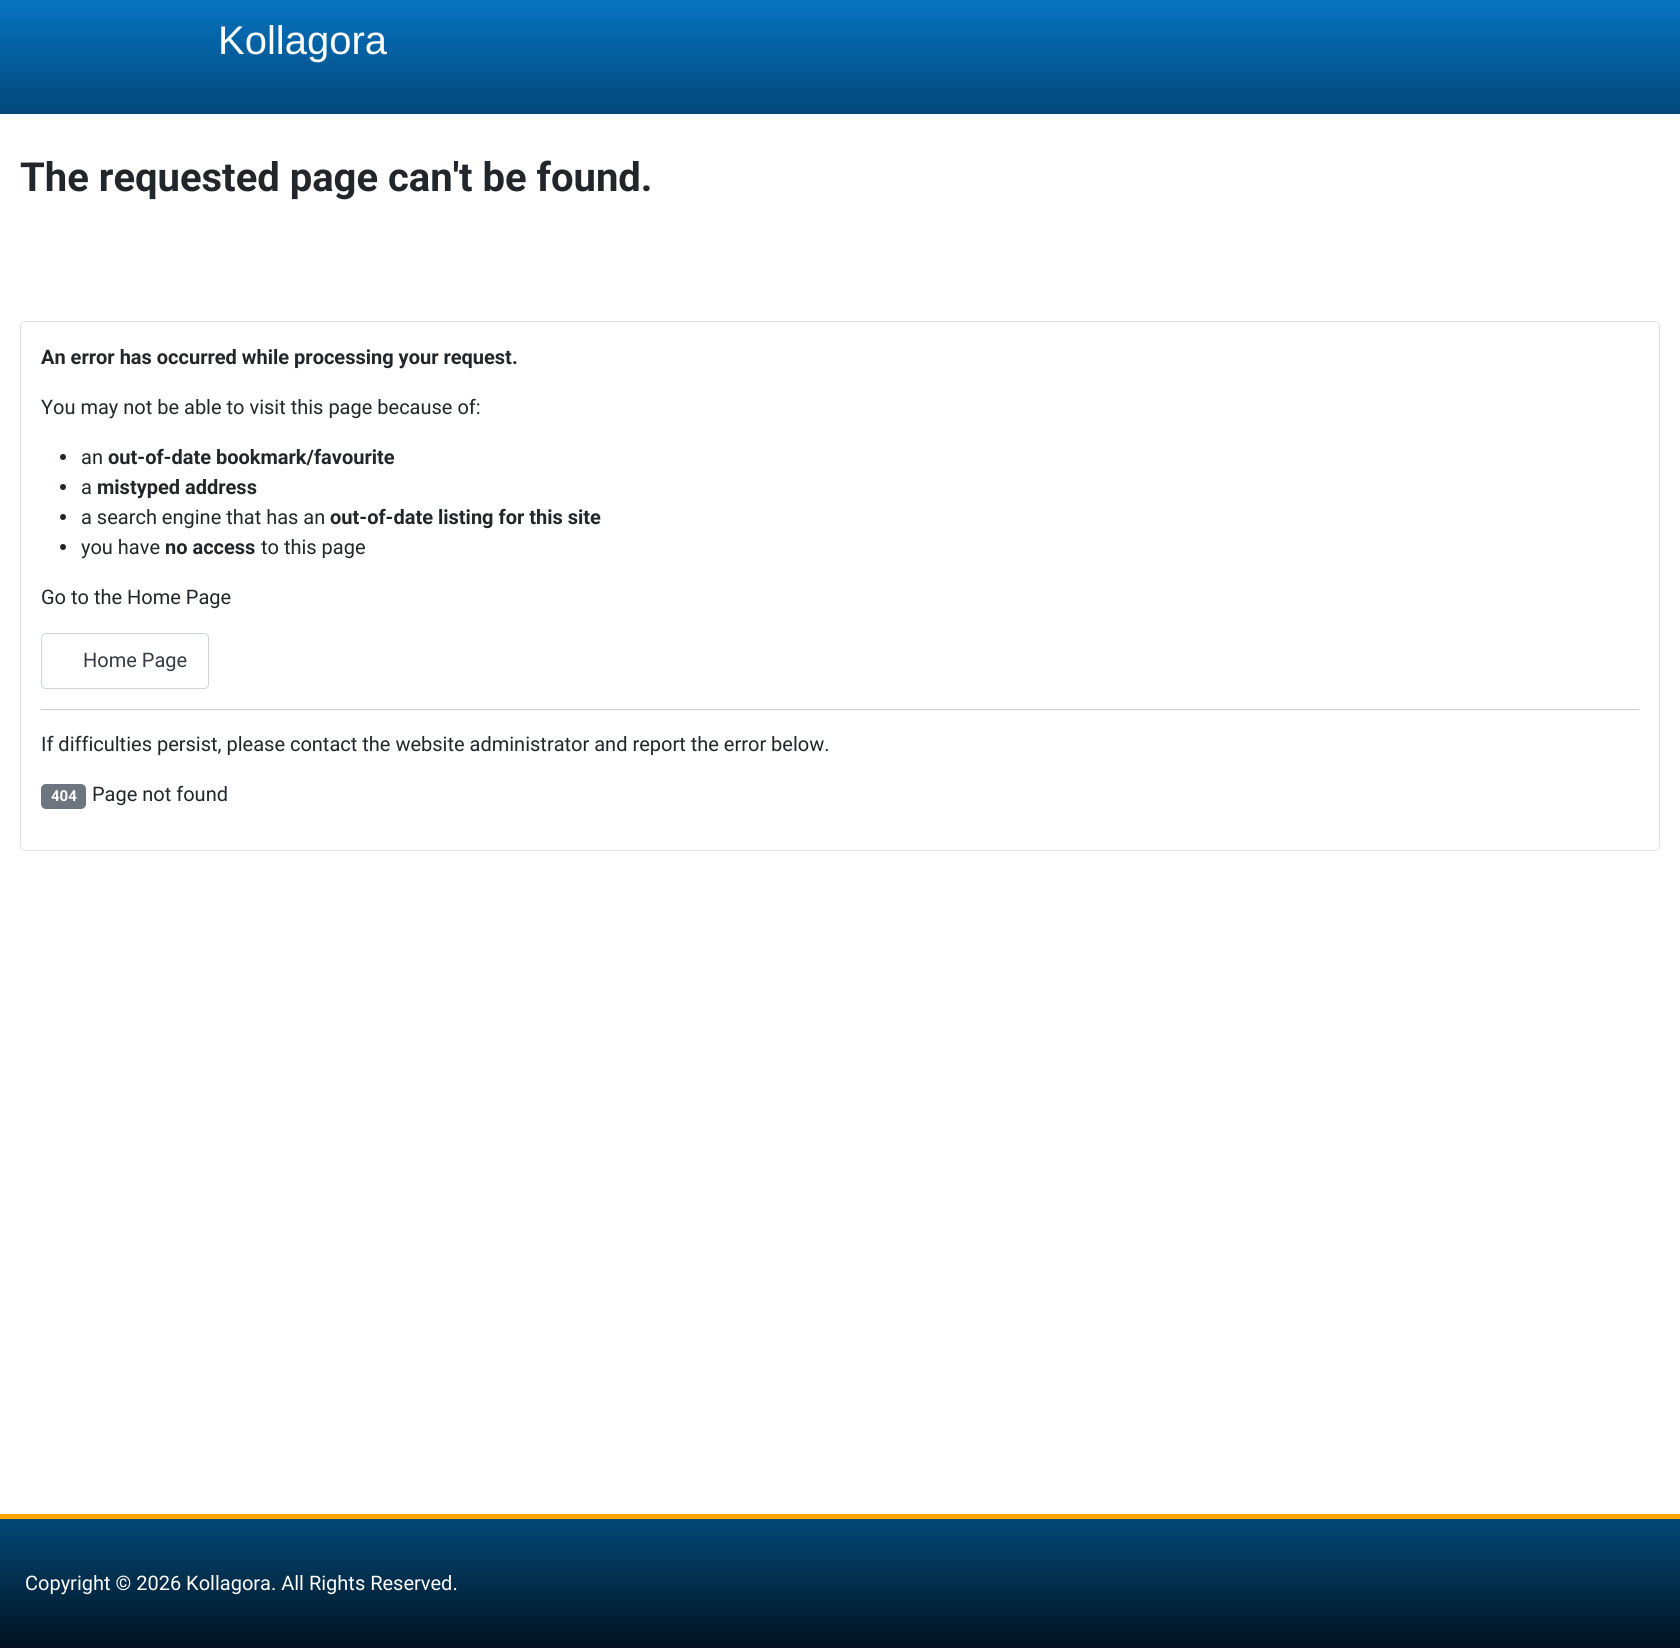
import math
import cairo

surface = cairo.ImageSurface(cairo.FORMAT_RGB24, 1680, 1648)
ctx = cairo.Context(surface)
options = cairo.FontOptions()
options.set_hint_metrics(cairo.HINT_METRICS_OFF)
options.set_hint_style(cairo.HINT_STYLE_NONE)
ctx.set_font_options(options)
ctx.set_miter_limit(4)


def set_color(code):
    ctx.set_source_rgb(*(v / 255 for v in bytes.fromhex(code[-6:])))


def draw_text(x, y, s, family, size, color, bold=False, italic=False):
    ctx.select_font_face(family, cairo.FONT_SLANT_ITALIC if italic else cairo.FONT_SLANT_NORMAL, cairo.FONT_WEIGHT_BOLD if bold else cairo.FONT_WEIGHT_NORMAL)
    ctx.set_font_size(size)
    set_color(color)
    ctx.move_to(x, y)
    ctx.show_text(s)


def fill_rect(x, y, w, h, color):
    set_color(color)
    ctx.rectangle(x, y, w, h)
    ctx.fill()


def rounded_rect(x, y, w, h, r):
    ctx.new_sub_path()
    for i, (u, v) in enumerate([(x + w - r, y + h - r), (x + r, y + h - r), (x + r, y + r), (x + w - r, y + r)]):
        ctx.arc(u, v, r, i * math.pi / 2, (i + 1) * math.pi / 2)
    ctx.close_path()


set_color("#ffffff")
ctx.paint()
gradient = cairo.LinearGradient(840, 0, 840, 114)
gradient.add_color_stop_rgba(0, 0.024, 0.451, 0.753, 1)
gradient.add_color_stop_rgba(1, 0.016, 0.282, 0.471, 1)
ctx.set_source(gradient)
ctx.rectangle(0, 0, 1680, 114)
ctx.fill()
draw_text(218, 54, "Kollagora", "Liberation Sans", 40, "#ffffff")
draw_text(20, 191, "The requested page can't be found.", "Roboto", 40, "#22262a", bold=True)
rounded_rect(20.5, 321.5, 1639, 529, 4.5)
set_color("#dfe3e7")
ctx.set_line_width(1)
ctx.stroke()
draw_text(41, 364, "An error has occurred while processing your request.", "Roboto", 20, "#22262a", bold=True)
draw_text(41, 414, "You may not be able to visit this page because of:", "Roboto", 20, "#22262a")
ctx.new_path()
ctx.arc(63, 457, 3, 0, 2 * math.pi)
ctx.fill()
draw_text(81, 464, "an", "Roboto", 20, "#22262a")
draw_text(108, 464, "out-of-date bookmark/favourite", "Roboto", 20, "#22262a", bold=True)
ctx.new_path()
ctx.arc(63, 487, 3, 0, 2 * math.pi)
ctx.fill()
draw_text(81, 494, "a", "Roboto", 20, "#22262a")
draw_text(97, 494, "mistyped address", "Roboto", 20, "#22262a", bold=True)
ctx.new_path()
ctx.arc(63, 517, 3, 0, 2 * math.pi)
ctx.fill()
draw_text(81, 524, "a search engine that has an", "Roboto", 20, "#22262a")
draw_text(330, 524, "out-of-date listing for this site", "Roboto", 20, "#22262a", bold=True)
ctx.new_path()
ctx.arc(63, 547, 3, 0, 2 * math.pi)
ctx.fill()
draw_text(81, 554, "you have", "Roboto", 20, "#22262a")
draw_text(165, 554, "no access", "Roboto", 20, "#22262a", bold=True)
draw_text(261, 554, "to this page", "Roboto", 20, "#22262a")
draw_text(41, 604, "Go to the Home Page", "Roboto", 20, "#22262a")
rounded_rect(41.5, 633.5, 167, 55, 4.5)
set_color("#ced4da")
ctx.stroke()
draw_text(83, 667, "Home Page", "Roboto", 20, "#353b41")
fill_rect(41, 709, 1598, 1, "#c8c9ca")
draw_text(41, 751, "If difficulties persist, please contact the website administrator and report the error below.", "Roboto", 20, "#22262a")
set_color("#6d757e")
rounded_rect(41, 784, 45, 25, 5)
ctx.fill()
draw_text(51, 801, "404", "Roboto", 15, "#ffffff", bold=True)
draw_text(92, 801, "Page not found", "Roboto", 20, "#22262a")
gradient = cairo.LinearGradient(840, 1519, 840, 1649)
gradient.add_color_stop_rgba(0, 0.016, 0.282, 0.471, 1)
gradient.add_color_stop_rgba(1, 0.004, 0.071, 0.122, 1)
ctx.set_source(gradient)
ctx.rectangle(0, 1519, 1680, 129)
ctx.fill()
fill_rect(0, 1514, 1680, 5, "#ffa500")
draw_text(25, 1590, "Copyright © 2026 Kollagora. All Rights Reserved.", "Roboto", 20, "#ffffff")
surface.write_to_png("output.png")
